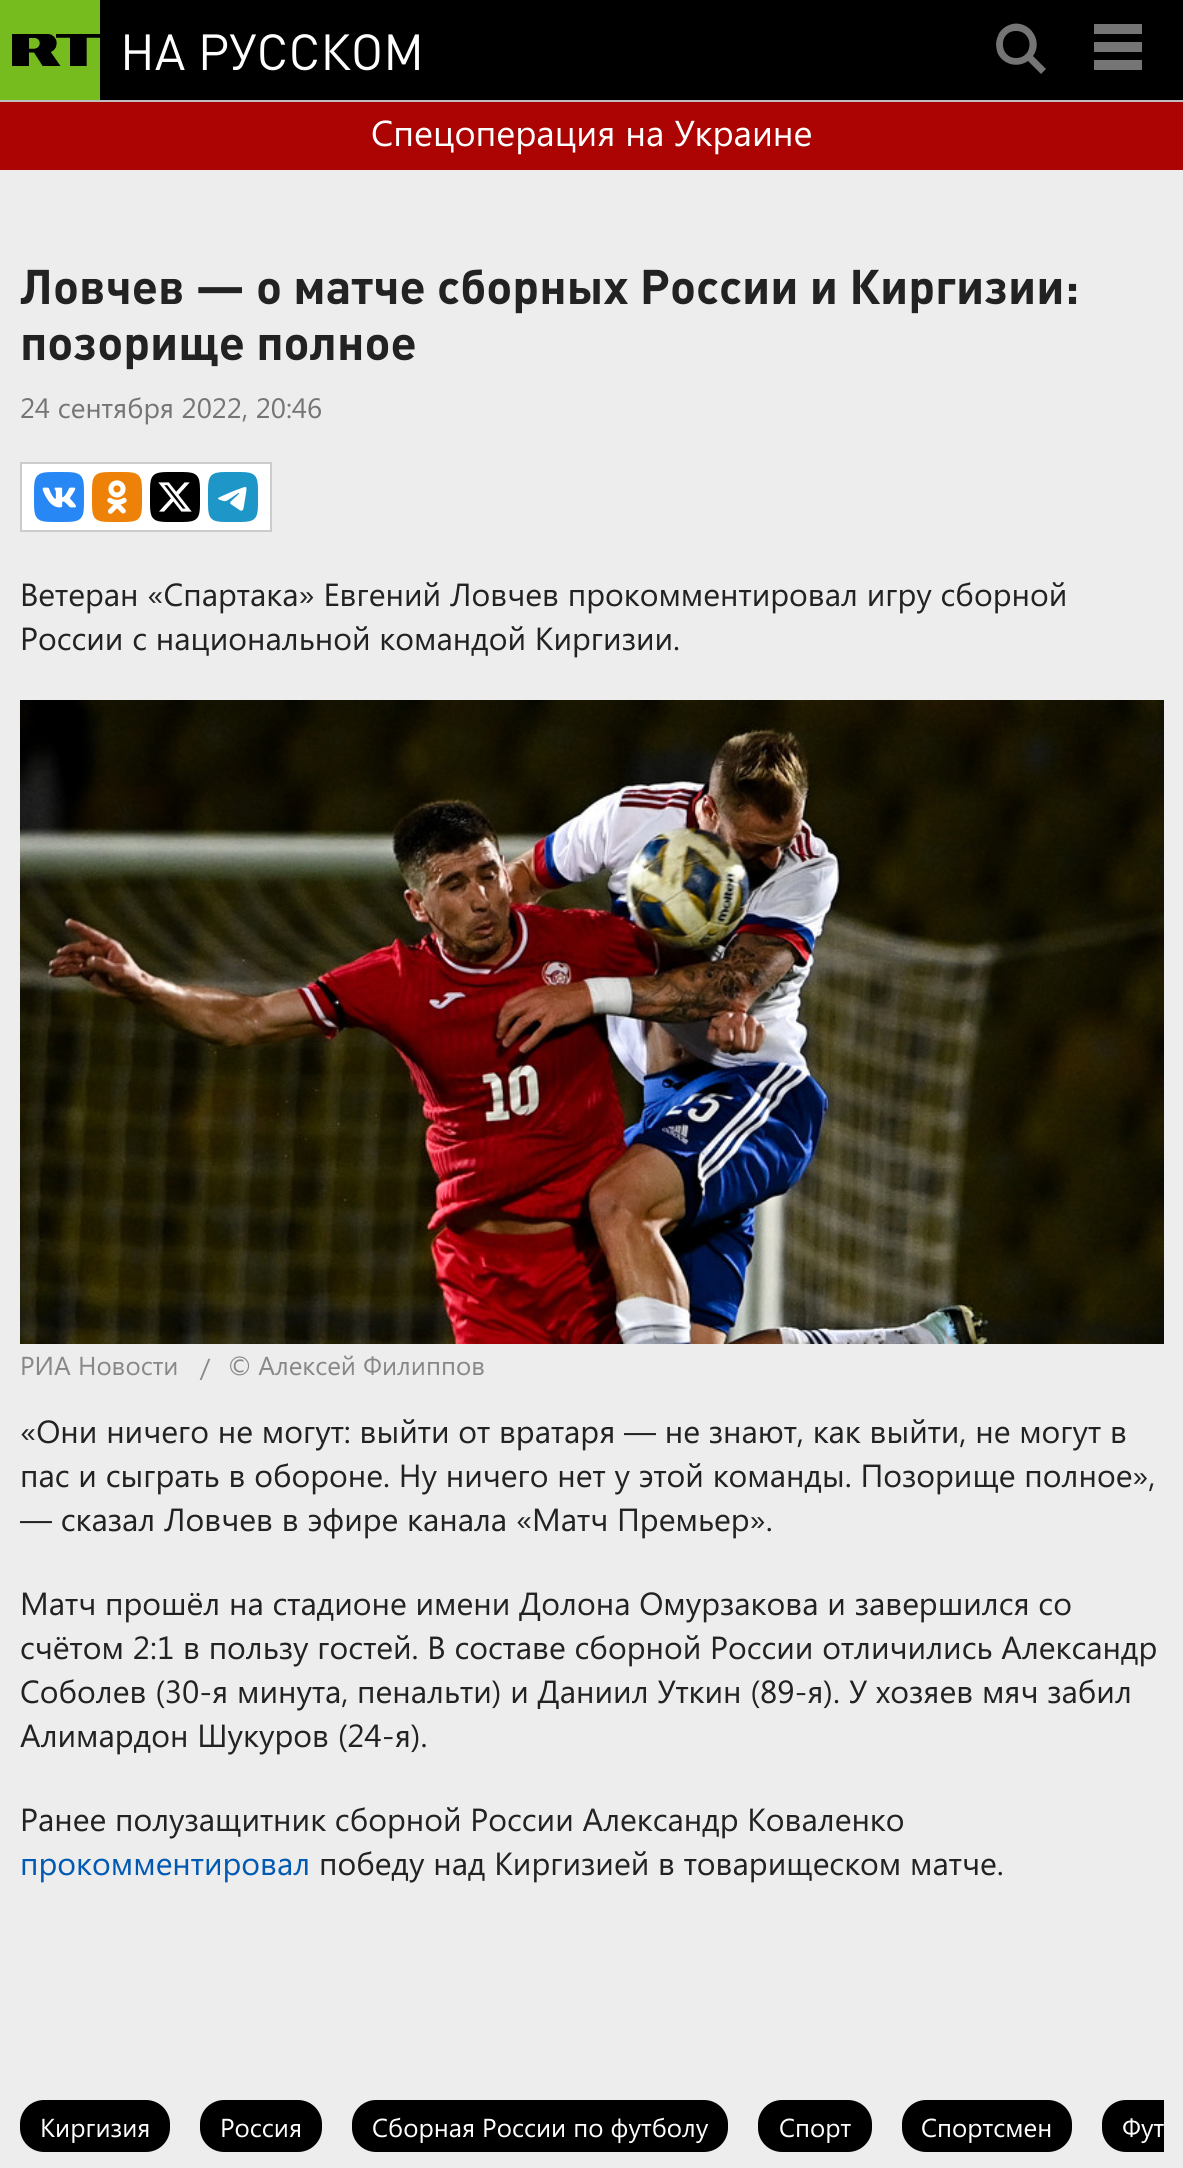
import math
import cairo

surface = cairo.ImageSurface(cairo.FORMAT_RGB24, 1183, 2168)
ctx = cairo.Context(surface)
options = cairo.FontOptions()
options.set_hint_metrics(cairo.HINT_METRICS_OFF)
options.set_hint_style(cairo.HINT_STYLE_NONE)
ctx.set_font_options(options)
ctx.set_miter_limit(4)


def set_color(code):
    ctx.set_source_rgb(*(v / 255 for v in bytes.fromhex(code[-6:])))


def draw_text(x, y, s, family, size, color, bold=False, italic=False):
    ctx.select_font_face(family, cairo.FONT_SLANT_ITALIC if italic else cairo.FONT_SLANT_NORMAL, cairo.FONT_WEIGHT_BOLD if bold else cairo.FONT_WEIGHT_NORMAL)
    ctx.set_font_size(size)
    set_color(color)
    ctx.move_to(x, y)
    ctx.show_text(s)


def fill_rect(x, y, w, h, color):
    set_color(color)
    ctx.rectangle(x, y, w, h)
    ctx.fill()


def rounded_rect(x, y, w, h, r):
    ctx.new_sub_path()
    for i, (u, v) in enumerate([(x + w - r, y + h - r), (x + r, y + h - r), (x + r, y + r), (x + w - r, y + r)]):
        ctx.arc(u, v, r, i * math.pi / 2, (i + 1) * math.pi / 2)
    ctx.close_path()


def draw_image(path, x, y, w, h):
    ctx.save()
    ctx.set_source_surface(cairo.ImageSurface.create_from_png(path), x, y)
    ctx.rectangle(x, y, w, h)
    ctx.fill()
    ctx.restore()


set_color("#000000")
ctx.paint()
fill_rect(0, 100, 1183, 2, "#bebebe")
fill_rect(0, 0, 100, 100, "#77bc1f")
draw_image("assets/img1.png", 12, 34, 88, 32)
draw_text(120, 70, "НА РУССКОМ", "DIN", 50, "#ffffff")
set_color("#757575")
ctx.new_path()
ctx.move_to(1046, 69)
ctx.line_to(1041, 74)
ctx.line_to(1028, 61)
ctx.curve_to(1018, 68, 1004, 65, 998, 54)
ctx.curve_to(996, 49, 995, 42, 998, 36)
ctx.curve_to(999, 32, 1003, 28, 1007, 26)
ctx.curve_to(1026, 16, 1045, 39, 1033, 56)
ctx.close_path()
ctx.move_to(1016, 31)
ctx.curve_to(998, 31, 999, 58, 1016, 58)
ctx.curve_to(1034, 58, 1034, 31, 1016, 31)
ctx.close_path()
ctx.fill()
fill_rect(1094, 60, 48, 10, "#757575")
fill_rect(1094, 24, 48, 10, "#757575")
fill_rect(1094, 42, 48, 10, "#757575")
fill_rect(0, 102, 1183, 68, "#ac0303")
draw_text(371, 146, "Спецоперация на Украине", "Segoe UI", 36, "#ffffff")
fill_rect(0, 170, 1183, 1998, "#ededed")
draw_text(20, 304, "Ловчев — о матче сборных России и Киргизии:", "DIN", 48, "#222222", bold=True)
draw_text(20, 360, "позорище полное", "DIN", 48, "#222222", bold=True)
draw_text(20, 418, "24 сентября 2022, 20:46", "Segoe UI", 28, "#757575")
set_color("#ffffff")
ctx.rectangle(21, 463, 250, 68)
ctx.fill_preserve()
set_color("#cccccc")
ctx.stroke()
draw_image("assets/img2.png", 34, 472, 50, 50)
draw_image("assets/img3.png", 92, 472, 50, 50)
draw_image("assets/img4.png", 150, 472, 50, 50)
draw_image("assets/img5.png", 208, 472, 50, 50)
draw_text(20, 606, "Ветеран «Спартака» Евгений Ловчев прокомментировал игру сборной", "Segoe UI", 32, "#222222")
draw_text(20, 650, "России с национальной командой Киргизии.", "Segoe UI", 32, "#222222")
draw_image("assets/img6.png", 20, 700, 1144, 644)
draw_text(20, 1375, "РИА Новости", "Segoe UI", 26, "#888888")
draw_text(200, 1377, "/", "Segoe UI", 26, "#888888")
draw_text(228, 1375, "© Алексей Филиппов", "Segoe UI", 26, "#888888")
draw_text(20, 1443, "«Они ничего не могут: выйти от вратаря — не знают, как выйти, не могут в", "Segoe UI", 32, "#222222")
draw_text(20, 1487, "пас и сыграть в обороне. Ну ничего нет у этой команды. Позорище полное»,", "Segoe UI", 32, "#222222")
draw_text(20, 1531, "— сказал Ловчев в эфире канала «Матч Премьер».", "Segoe UI", 32, "#222222")
draw_text(20, 1615, "Матч прошёл на стадионе имени Долона Омурзакова и завершился со", "Segoe UI", 32, "#222222")
draw_text(20, 1659, "счётом 2:1 в пользу гостей. В составе сборной России отличились Александр", "Segoe UI", 32, "#222222")
draw_text(20, 1703, "Соболев (30-я минута, пенальти) и Даниил Уткин (89-я). У хозяев мяч забил", "Segoe UI", 32, "#222222")
draw_text(20, 1747, "Алимардон Шукуров (24-я).", "Segoe UI", 32, "#222222")
draw_text(20, 1831, "Ранее полузащитник сборной России Александр Коваленко", "Segoe UI", 32, "#222222")
draw_text(20, 1875, "прокомментировал", "Segoe UI", 32, "#0059b2")
draw_text(319, 1875, "победу над Киргизией в товарищеском матче.", "Segoe UI", 32, "#222222")
set_color("#000000")
rounded_rect(20, 2100, 150, 52, 24)
ctx.fill()
draw_text(40, 2137, "Киргизия", "Segoe UI", 26, "#ffffff")
set_color("#000000")
rounded_rect(200, 2100, 122, 52, 24)
ctx.fill()
draw_text(220, 2137, "Россия", "Segoe UI", 26, "#ffffff")
set_color("#000000")
rounded_rect(352, 2100, 376, 52, 24)
ctx.fill()
draw_text(372, 2137, "Сборная России по футболу", "Segoe UI", 26, "#ffffff")
set_color("#000000")
rounded_rect(758, 2100, 114, 52, 24)
ctx.fill()
draw_text(779, 2137, "Спорт", "Segoe UI", 26, "#ffffff")
set_color("#000000")
rounded_rect(902, 2100, 170, 52, 24)
ctx.fill()
draw_text(921, 2137, "Спортсмен", "Segoe UI", 26, "#ffffff")
set_color("#000000")
ctx.new_path()
ctx.move_to(1126, 2100)
ctx.line_to(1164, 2100)
ctx.line_to(1164, 2152)
ctx.line_to(1126, 2152)
ctx.curve_to(1112.5, 2152, 1102, 2141.5, 1102, 2128)
ctx.line_to(1102, 2124)
ctx.curve_to(1102, 2110.5, 1112.5, 2100, 1126, 2100)
ctx.close_path()
ctx.fill()
draw_text(1122, 2137, "Фут", "Segoe UI", 26, "#ffffff")
surface.write_to_png("output.png")
